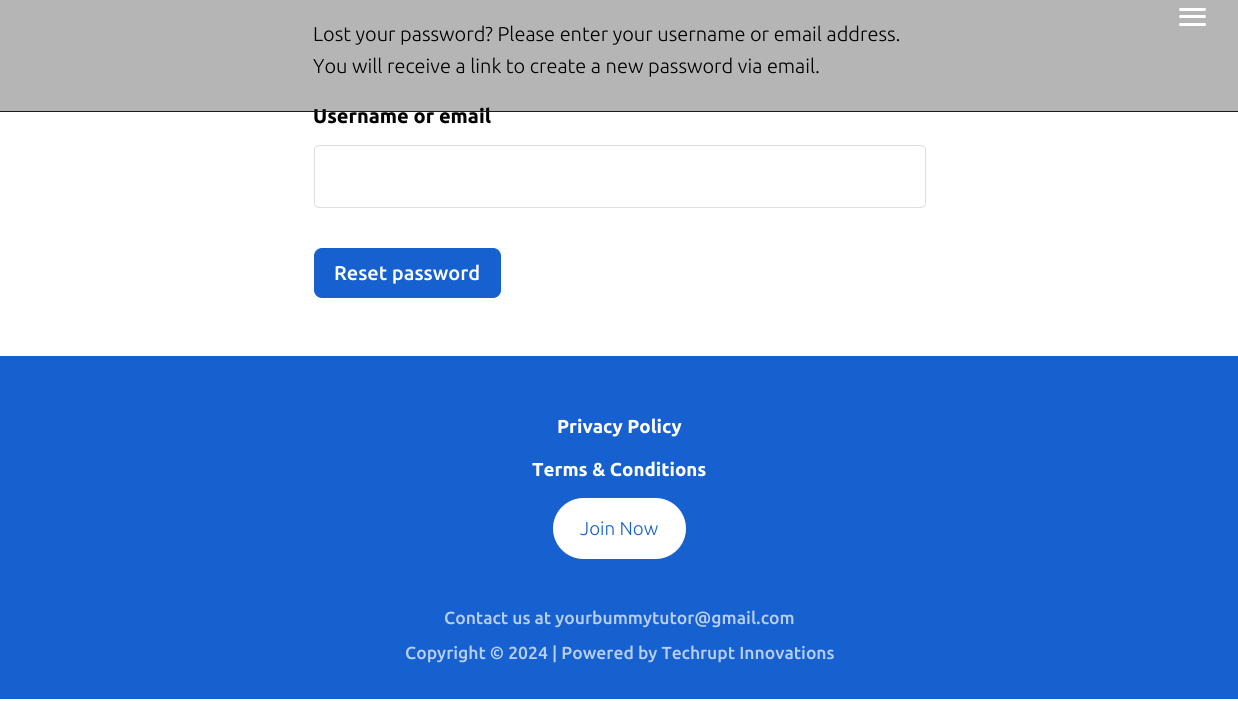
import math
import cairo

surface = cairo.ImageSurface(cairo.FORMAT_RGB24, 1238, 701)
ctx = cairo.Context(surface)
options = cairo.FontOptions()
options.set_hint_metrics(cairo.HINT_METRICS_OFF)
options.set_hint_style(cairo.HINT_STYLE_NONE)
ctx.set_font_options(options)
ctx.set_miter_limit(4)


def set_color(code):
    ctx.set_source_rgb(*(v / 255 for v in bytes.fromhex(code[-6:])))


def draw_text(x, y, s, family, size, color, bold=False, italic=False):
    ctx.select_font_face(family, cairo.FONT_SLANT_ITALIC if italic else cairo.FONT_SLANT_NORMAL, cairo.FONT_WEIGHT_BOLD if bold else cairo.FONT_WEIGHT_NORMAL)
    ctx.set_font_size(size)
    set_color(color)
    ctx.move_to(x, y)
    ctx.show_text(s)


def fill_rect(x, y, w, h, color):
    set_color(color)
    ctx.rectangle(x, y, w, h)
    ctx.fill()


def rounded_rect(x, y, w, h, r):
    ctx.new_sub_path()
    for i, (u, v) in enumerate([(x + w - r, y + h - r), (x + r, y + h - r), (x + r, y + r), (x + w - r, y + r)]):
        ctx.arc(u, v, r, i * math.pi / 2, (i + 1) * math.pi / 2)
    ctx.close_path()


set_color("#ffffff")
ctx.paint()
draw_text(313, 41, "Lost your password? Please enter your username or email address.", "Ubuntu Light", 20, "#000000")
draw_text(313, 73, "You will receive a link to create a new password via email.", "Ubuntu Light", 20, "#000000")
draw_text(313, 123, "Username or email", "Ubuntu", 20, "#000000", bold=True)
ctx.set_source_rgba(0, 0, 0, 0.29)
ctx.rectangle(0, 0, 1238, 111)
ctx.fill()
fill_rect(0, 111, 1238, 1, "#1a1b20")
set_color("#ffffff")
rounded_rect(1179, 8, 27, 3, 1.5)
ctx.fill()
rounded_rect(1179, 15, 27, 3, 1.5)
ctx.fill()
rounded_rect(1179, 23, 27, 3, 1.5)
ctx.fill()
rounded_rect(314.5, 145.5, 611, 62, 4.5)
set_color("#dcdfe5")
ctx.set_line_width(1)
ctx.stroke()
set_color("#1760d0")
rounded_rect(314.5, 248.5, 186, 49, 7.5)
ctx.fill_preserve()
ctx.stroke()
draw_text(334, 280, "Reset password", "Ubuntu Medium", 20, "#ffffff")
fill_rect(0, 356, 1238, 343, "#1760d0")
draw_text(557, 433, "Privacy Policy", "Ubuntu", 18.75, "#ffffff", bold=True)
draw_text(532, 476, "Terms & Conditions", "Ubuntu", 18.75, "#ffffff", bold=True)
rounded_rect(553, 498, 133, 61, 30.5)
ctx.fill()
draw_text(580, 535, "Join Now", "Ubuntu Light", 18.75, "#1760d0")
draw_text(444, 624, "Contact us at yourbummytutor@gmail.com", "Ubuntu Medium", 17.5, "#b9cff1")
draw_text(405, 659, "Copyright © 2024 | Powered by Techrupt Innovations", "Ubuntu Medium", 17.5, "#b9cff1")
surface.write_to_png("output.png")
